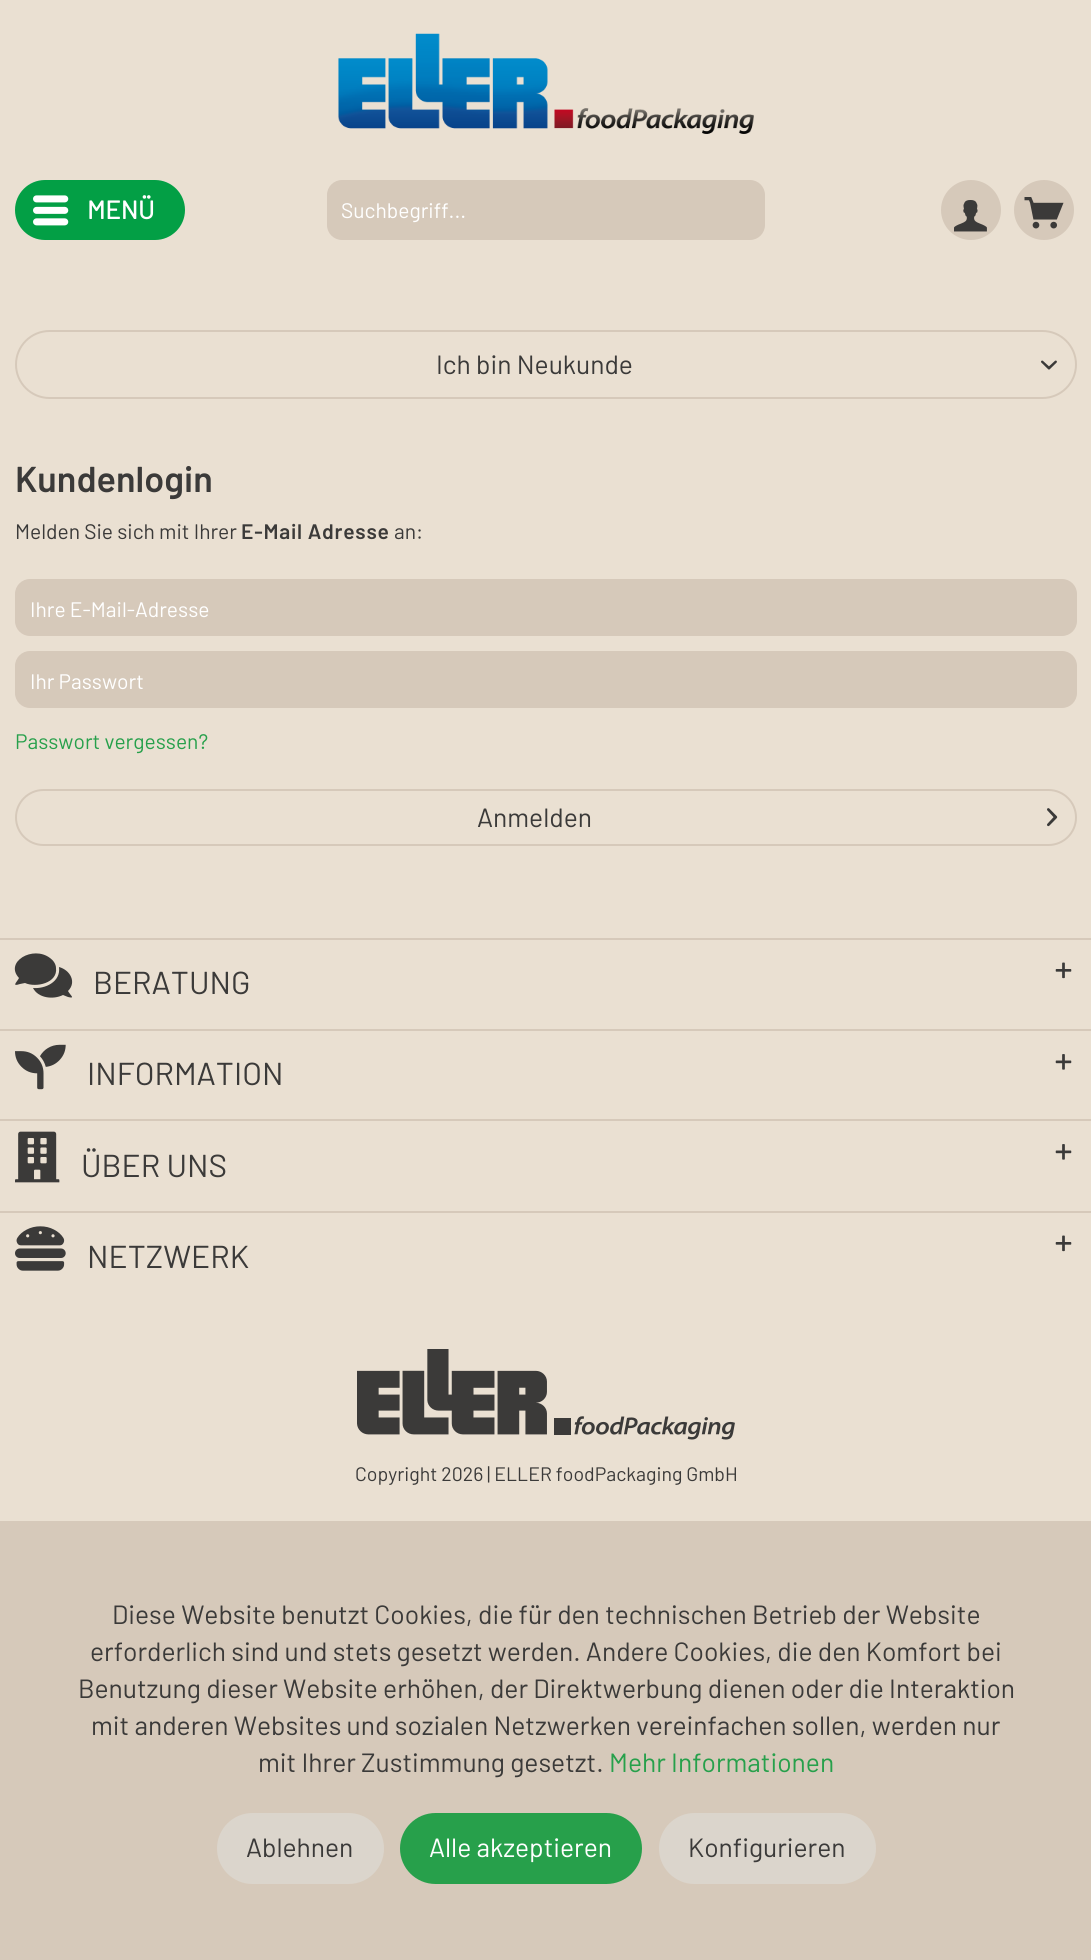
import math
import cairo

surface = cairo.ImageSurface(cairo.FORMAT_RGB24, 1091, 1960)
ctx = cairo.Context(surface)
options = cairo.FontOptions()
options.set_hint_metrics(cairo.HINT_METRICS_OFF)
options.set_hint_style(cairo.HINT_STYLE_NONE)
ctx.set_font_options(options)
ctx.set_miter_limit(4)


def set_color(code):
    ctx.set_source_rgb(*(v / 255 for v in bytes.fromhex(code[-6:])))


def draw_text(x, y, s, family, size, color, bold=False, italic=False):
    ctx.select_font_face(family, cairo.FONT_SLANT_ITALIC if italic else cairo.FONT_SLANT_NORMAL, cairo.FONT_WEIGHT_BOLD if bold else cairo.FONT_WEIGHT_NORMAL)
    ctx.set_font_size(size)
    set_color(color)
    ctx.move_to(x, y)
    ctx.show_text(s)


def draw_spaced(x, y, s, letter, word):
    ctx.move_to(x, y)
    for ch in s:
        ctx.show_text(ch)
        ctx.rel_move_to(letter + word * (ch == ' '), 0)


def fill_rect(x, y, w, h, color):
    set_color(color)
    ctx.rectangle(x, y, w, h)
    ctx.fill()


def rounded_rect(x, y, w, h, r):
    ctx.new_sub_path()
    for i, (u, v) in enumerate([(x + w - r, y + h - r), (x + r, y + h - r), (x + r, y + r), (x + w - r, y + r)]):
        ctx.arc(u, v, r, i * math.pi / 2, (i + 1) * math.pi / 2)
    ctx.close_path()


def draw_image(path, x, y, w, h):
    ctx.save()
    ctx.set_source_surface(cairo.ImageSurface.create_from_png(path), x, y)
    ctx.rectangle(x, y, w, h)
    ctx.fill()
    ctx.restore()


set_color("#eae0d2")
ctx.paint()
draw_image("assets/img1.png", 338, 33, 416, 101)
set_color("#039f45")
rounded_rect(15, 180, 170, 60, 30)
ctx.fill()
draw_image("assets/img2.png", 33, 195, 36, 31)
draw_text(87, 219, "MENÜ", "Barlow", 25.5, "#ffffff", bold=True)
set_color("#d6c9ba")
rounded_rect(327, 180, 438, 60, 15)
ctx.fill()
draw_text(341, 218, "Suchbegriff...", "Barlow", 21, "#ffffff")
set_color("#d6c9ba")
ctx.new_path()
ctx.arc(971, 210, 29, 0, 2 * math.pi)
ctx.fill_preserve()
ctx.stroke()
draw_image("assets/img3.png", 954, 200, 33, 32)
ctx.arc(1044, 210, 29, 0, 2 * math.pi)
ctx.fill_preserve()
ctx.stroke()
draw_image("assets/img4.png", 1024, 197, 40, 32)
rounded_rect(16, 331, 1060, 67, 33.5)
ctx.stroke()
draw_text(436, 374, "Ich bin Neukunde", "Barlow", 26.4, "#3b3a39")
draw_image("assets/img5.png", 1041, 360, 16, 10)
draw_text(15, 492, "Kundenlogin", "Barlow SemiBold", 36, "#3b3a39")
draw_text(15, 539, "Melden Sie sich mit Ihrer", "Barlow", 21, "#3b3a39")
ctx.select_font_face("Barlow SemiBold")
draw_spaced(241, 539, "E-Mail Adresse", 0.75, 0)
draw_text(394, 539, "an:", "Barlow", 21, "#3b3a39")
set_color("#d6c9ba")
rounded_rect(15, 579, 1062, 57, 15)
ctx.fill()
draw_text(30, 617, "Ihre E-Mail-Adresse", "Barlow", 21, "#ffffff")
set_color("#d6c9ba")
rounded_rect(15, 651, 1062, 57, 15)
ctx.fill()
draw_text(30, 689, "Ihr Passwort", "Barlow", 21, "#ffffff")
draw_text(15, 749, "Passwort vergessen?", "Barlow", 21, "#27a04b")
rounded_rect(16, 790, 1060, 55, 27.5)
set_color("#d6c9ba")
ctx.stroke()
draw_text(477, 827, "Anmelden", "Barlow", 26.4, "#3b3a39")
draw_image("assets/img6.png", 1047, 808, 11, 19)
fill_rect(0, 938, 1091, 2, "#d6c9ba")
set_color("#3b3a39")
ctx.new_path()
ctx.move_to(50, 958)
ctx.curve_to(53, 960, 56, 964, 56, 968)
ctx.curve_to(58, 983, 36, 988, 25, 983)
ctx.line_to(20, 984)
ctx.curve_to(11, 987, 17, 982, 19, 978)
ctx.curve_to(4, 962, 33, 945, 50, 958)
ctx.close_path()
ctx.move_to(68, 991)
ctx.curve_to(70, 995, 76, 999, 68, 997)
ctx.line_to(63, 995)
ctx.curve_to(53, 1000, 38, 998, 33, 988)
ctx.curve_to(45, 989, 61, 982, 59, 967)
ctx.curve_to(70, 970, 77, 982, 68, 991)
ctx.close_path()
ctx.fill()
draw_text(93, 994, "BERATUNG", "Barlow", 31.75, "#3b3a39")
draw_image("assets/img7.png", 1055, 962, 17, 17)
fill_rect(0, 1029, 1091, 2, "#d6c9ba")
draw_image("assets/img8.png", 15, 1044, 51, 46)
draw_text(87, 1085, "INFORMATION", "Barlow", 31.75, "#3b3a39")
draw_image("assets/img9.png", 1055, 1054, 17, 16)
fill_rect(0, 1119, 1091, 2, "#d6c9ba")
draw_image("assets/img10.png", 15, 1131, 45, 52)
draw_text(81, 1177, "ÜBER UNS", "Barlow", 31.75, "#3b3a39")
draw_image("assets/img9.png", 1055, 1144, 17, 16)
fill_rect(0, 1211, 1091, 2, "#d6c9ba")
draw_image("assets/img11.png", 15, 1226, 51, 45)
draw_text(87, 1268, "NETZWERK", "Barlow", 31.75, "#3b3a39")
draw_image("assets/img7.png", 1055, 1235, 17, 17)
draw_image("assets/img12.png", 357, 1349, 378, 91)
draw_text(355, 1481, "Copyright 2026 | ELLER foodPackaging GmbH", "Barlow", 19.5, "#3b3a39")
fill_rect(0, 1521, 1091, 439, "#d6c9ba")
draw_text(112, 1624, "Diese Website benutzt Cookies, die für den technischen Betrieb der Website", "Barlow", 26.4, "#3b3a39")
draw_text(90, 1661, "erforderlich sind und stets gesetzt werden. Andere Cookies, die den Komfort bei", "Barlow", 26.4, "#3b3a39")
draw_text(78, 1698, "Benutzung dieser Website erhöhen, der Direktwerbung dienen oder die Interaktion", "Barlow", 26.4, "#3b3a39")
draw_text(91, 1735, "mit anderen Websites und sozialen Netzwerken vereinfachen sollen, werden nur", "Barlow", 26.4, "#3b3a39")
draw_text(258, 1772, "mit Ihrer Zustimmung gesetzt.", "Barlow", 26.4, "#3b3a39")
draw_text(609, 1772, "Mehr Informationen", "Barlow", 26.4, "#27a04b")
set_color("#dbd5cc")
rounded_rect(216, 1812, 169, 73, 36.5)
ctx.fill_preserve()
set_color("#d6c9ba")
ctx.stroke()
draw_text(246, 1857, "Ablehnen", "Barlow", 26.4, "#3b3a39")
set_color("#27a04b")
rounded_rect(399, 1812, 244, 73, 36.5)
ctx.fill_preserve()
set_color("#d6c9ba")
ctx.stroke()
draw_text(429, 1857, "Alle akzeptieren", "Barlow", 26.4, "#ffffff")
set_color("#dbd5cc")
rounded_rect(658, 1812, 219, 73, 36.5)
ctx.fill_preserve()
set_color("#d6c9ba")
ctx.stroke()
draw_text(688, 1857, "Konfigurieren", "Barlow", 26.4, "#3b3a39")
surface.write_to_png("output.png")
